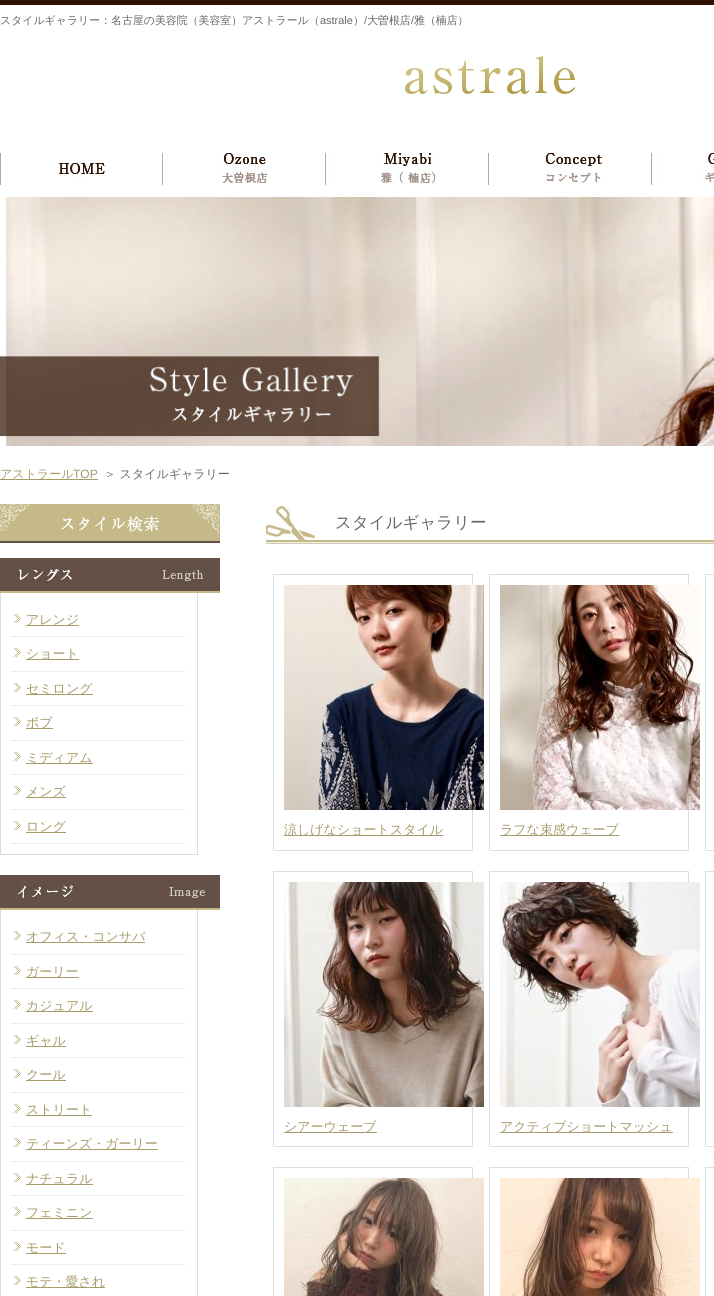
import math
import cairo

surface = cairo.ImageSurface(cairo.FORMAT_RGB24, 714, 1296)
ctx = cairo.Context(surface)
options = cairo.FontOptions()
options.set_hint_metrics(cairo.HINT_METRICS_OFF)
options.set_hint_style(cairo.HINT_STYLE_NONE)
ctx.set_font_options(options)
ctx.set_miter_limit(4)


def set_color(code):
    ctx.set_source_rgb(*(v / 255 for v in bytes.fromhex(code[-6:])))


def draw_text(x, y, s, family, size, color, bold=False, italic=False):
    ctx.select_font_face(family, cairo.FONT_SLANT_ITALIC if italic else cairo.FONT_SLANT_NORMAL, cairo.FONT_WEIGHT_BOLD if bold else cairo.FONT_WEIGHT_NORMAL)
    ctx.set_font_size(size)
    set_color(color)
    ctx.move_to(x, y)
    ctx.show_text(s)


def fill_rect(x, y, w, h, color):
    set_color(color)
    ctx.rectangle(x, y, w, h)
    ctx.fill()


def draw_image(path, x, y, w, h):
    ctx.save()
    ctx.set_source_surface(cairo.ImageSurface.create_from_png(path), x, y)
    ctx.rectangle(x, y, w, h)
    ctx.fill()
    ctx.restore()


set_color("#ffffff")
ctx.paint()
fill_rect(0, 0, 714, 5, "#2d1102")
draw_text(0, 24, "スタイルギャラリー：名古屋の美容院（美容室）アストラール（", "WenQuanYi Zen Hei Medium", 10.9, "#666666")
draw_text(320, 24, "astrale", "Liberation Sans", 10.9, "#666666")
draw_text(353, 24, "） 大曽根店", "WenQuanYi Zen Hei Medium", 10.9, "#666666")
draw_text(411, 24, "/", "Liberation Sans", 10.9, "#666666")
draw_text(414, 24, "雅（楠店）", "WenQuanYi Zen Hei Medium", 10.9, "#666666")
draw_text(364, 24, "/", "Liberation Sans", 10.9, "#666666")
draw_image("assets/img1.png", 405, 56, 171, 38)
draw_image("assets/img2.png", 0, 153, 111, 32)
draw_image("assets/img3.png", 162, 153, 111, 32)
draw_image("assets/img4.png", 325, 153, 112, 32)
draw_image("assets/img5.png", 488, 153, 120, 32)
draw_image("assets/img6.png", 651, 153, 63, 32)
draw_image("assets/img7.png", 0, 197, 714, 249)
fill_rect(0, 479, 98, 1, "#a79b69")
draw_text(0, 478, "アストラール", "WenQuanYi Zen Hei Medium", 12, "#a79b69")
draw_text(73, 478, "TOP", "Liberation Sans", 12, "#a79b69")
draw_text(104, 478, "＞ スタイルギャラリー", "WenQuanYi Zen Hei Medium", 12, "#666666")
draw_image("assets/img8.png", 0, 504, 220, 39)
draw_image("assets/img9.png", 0, 558, 220, 35)
fill_rect(197, 593, 1, 262, "#dddddd")
fill_rect(0, 854, 198, 1, "#dddddd")
fill_rect(0, 593, 1, 262, "#dddddd")
draw_image("assets/img10.png", 14, 614, 7, 9)
ctx.new_path()
ctx.move_to(11, 636.5)
ctx.line_to(187, 636.5)
ctx.set_line_width(1)
ctx.set_dash([1, 1])
ctx.stroke()
fill_rect(26, 625, 53, 1, "#a79b69")
draw_text(26, 624, "アレンジ", "WenQuanYi Zen Hei Medium", 13, "#a79b69")
draw_image("assets/img10.png", 14, 648, 7, 9)
ctx.new_path()
ctx.move_to(11, 671.5)
ctx.line_to(187, 671.5)
set_color("#dddddd")
ctx.stroke()
fill_rect(26, 659, 53, 1, "#a79b69")
draw_text(26, 658, "ショート", "WenQuanYi Zen Hei Medium", 13, "#a79b69")
draw_image("assets/img10.png", 14, 683, 7, 9)
ctx.new_path()
ctx.move_to(11, 705.5)
ctx.line_to(187, 705.5)
set_color("#dddddd")
ctx.stroke()
fill_rect(26, 694, 67, 1, "#a79b69")
draw_text(26, 693, "セミロング", "WenQuanYi Zen Hei Medium", 13, "#a79b69")
draw_image("assets/img10.png", 14, 717, 7, 9)
ctx.new_path()
ctx.move_to(11, 740.5)
ctx.line_to(187, 740.5)
set_color("#dddddd")
ctx.stroke()
fill_rect(26, 728, 27, 1, "#a79b69")
draw_text(26, 727, "ボブ", "WenQuanYi Zen Hei Medium", 13, "#a79b69")
draw_image("assets/img10.png", 14, 752, 7, 9)
ctx.new_path()
ctx.move_to(11, 774.5)
ctx.line_to(187, 774.5)
set_color("#dddddd")
ctx.stroke()
fill_rect(26, 763, 67, 1, "#a79b69")
draw_text(26, 762, "ミディアム", "WenQuanYi Zen Hei Medium", 13, "#a79b69")
draw_image("assets/img10.png", 14, 786, 7, 9)
ctx.new_path()
ctx.move_to(11, 809.5)
ctx.line_to(187, 809.5)
set_color("#dddddd")
ctx.stroke()
draw_text(26, 796, "メンズ", "WenQuanYi Zen Hei Medium", 13, "#a79b69")
fill_rect(26, 797, 40, 1, "#a79b69")
draw_image("assets/img10.png", 14, 821, 7, 9)
ctx.new_path()
ctx.move_to(11, 843.5)
ctx.line_to(187, 843.5)
set_color("#dddddd")
ctx.stroke()
fill_rect(26, 832, 40, 1, "#a79b69")
draw_text(26, 831, "ロング", "WenQuanYi Zen Hei Medium", 13, "#a79b69")
draw_image("assets/img11.png", 0, 875, 220, 35)
fill_rect(197, 910, 1, 386, "#dddddd")
fill_rect(0, 910, 1, 386, "#dddddd")
draw_image("assets/img10.png", 14, 931, 7, 9)
ctx.new_path()
ctx.move_to(11, 954.5)
ctx.line_to(187, 954.5)
ctx.stroke()
fill_rect(26, 942, 119, 1, "#a79b69")
draw_text(26, 941, "オフィス・コンサバ", "WenQuanYi Zen Hei Medium", 13, "#a79b69")
draw_image("assets/img10.png", 14, 966, 7, 9)
ctx.new_path()
ctx.move_to(11, 988.5)
ctx.line_to(187, 988.5)
set_color("#dddddd")
ctx.stroke()
fill_rect(26, 977, 53, 1, "#a79b69")
draw_text(26, 976, "ガーリー", "WenQuanYi Zen Hei Medium", 13, "#a79b69")
draw_image("assets/img10.png", 14, 1000, 7, 9)
ctx.new_path()
ctx.move_to(11, 1023.5)
ctx.line_to(187, 1023.5)
set_color("#dddddd")
ctx.stroke()
fill_rect(26, 1011, 67, 1, "#a79b69")
draw_text(26, 1010, "カジュアル", "WenQuanYi Zen Hei Medium", 13, "#a79b69")
draw_image("assets/img10.png", 14, 1035, 7, 9)
ctx.new_path()
ctx.move_to(11, 1057.5)
ctx.line_to(187, 1057.5)
set_color("#dddddd")
ctx.stroke()
fill_rect(26, 1046, 40, 1, "#a79b69")
draw_text(26, 1045, "ギャル", "WenQuanYi Zen Hei Medium", 13, "#a79b69")
draw_image("assets/img10.png", 14, 1069, 7, 9)
ctx.new_path()
ctx.move_to(11, 1092.5)
ctx.line_to(187, 1092.5)
set_color("#dddddd")
ctx.stroke()
fill_rect(26, 1080, 40, 1, "#a79b69")
draw_text(26, 1079, "クール", "WenQuanYi Zen Hei Medium", 13, "#a79b69")
draw_image("assets/img10.png", 14, 1104, 7, 9)
ctx.new_path()
ctx.move_to(11, 1126.5)
ctx.line_to(187, 1126.5)
set_color("#dddddd")
ctx.stroke()
fill_rect(26, 1115, 66, 1, "#a79b69")
draw_text(26, 1114, "ストリート", "WenQuanYi Zen Hei Medium", 13, "#a79b69")
draw_image("assets/img10.png", 14, 1138, 7, 9)
ctx.new_path()
ctx.move_to(11, 1161.5)
ctx.line_to(187, 1161.5)
set_color("#dddddd")
ctx.stroke()
fill_rect(26, 1149, 132, 1, "#a79b69")
draw_text(26, 1148, "ティーンズ・ガーリー", "WenQuanYi Zen Hei Medium", 13, "#a79b69")
draw_image("assets/img10.png", 14, 1173, 7, 9)
ctx.new_path()
ctx.move_to(11, 1195.5)
ctx.line_to(187, 1195.5)
set_color("#dddddd")
ctx.stroke()
fill_rect(26, 1184, 67, 1, "#a79b69")
draw_text(26, 1183, "ナチュラル", "WenQuanYi Zen Hei Medium", 13, "#a79b69")
draw_image("assets/img10.png", 14, 1207, 7, 9)
ctx.new_path()
ctx.move_to(11, 1230.5)
ctx.line_to(187, 1230.5)
set_color("#dddddd")
ctx.stroke()
fill_rect(26, 1218, 67, 1, "#a79b69")
draw_text(26, 1217, "フェミニン", "WenQuanYi Zen Hei Medium", 13, "#a79b69")
draw_image("assets/img10.png", 14, 1242, 7, 9)
ctx.new_path()
ctx.move_to(11, 1264.5)
ctx.line_to(187, 1264.5)
set_color("#dddddd")
ctx.stroke()
fill_rect(26, 1253, 40, 1, "#a79b69")
draw_text(26, 1252, "モード", "WenQuanYi Zen Hei Medium", 13, "#a79b69")
draw_image("assets/img10.png", 14, 1276, 7, 9)
fill_rect(26, 1287, 79, 1, "#a79b69")
draw_text(26, 1286, "モテ・愛され", "WenQuanYi Zen Hei Medium", 13, "#a79b69")
draw_image("assets/img12.png", 265, 506, 449, 38)
draw_text(335, 528, "スタイルギャラリー", "WenQuanYi Zen Hei Medium", 16.5, "#666666")
ctx.rectangle(273.5, 574.5, 199, 276)
set_color("#dddddd")
ctx.set_dash([])
ctx.stroke()
draw_image("assets/img13.png", 284, 585, 200, 225)
fill_rect(284, 835, 159, 1, "#a79b69")
draw_text(284, 834, "涼しげなショートスタイル", "WenQuanYi Zen Hei Medium", 13, "#a79b69")
ctx.rectangle(489.5, 574.5, 199, 276)
set_color("#dddddd")
ctx.stroke()
draw_image("assets/img14.png", 500, 585, 200, 225)
fill_rect(500, 835, 119, 1, "#a79b69")
draw_text(500, 834, "ラフな束感ウェーブ", "WenQuanYi Zen Hei Medium", 13, "#a79b69")
ctx.rectangle(705.5, 574.5, 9, 276)
set_color("#dddddd")
ctx.stroke()
ctx.rectangle(273.5, 871.5, 199, 275)
ctx.stroke()
draw_image("assets/img15.png", 284, 882, 200, 225)
fill_rect(284, 1132, 93, 1, "#a79b69")
draw_text(284, 1131, "シアーウェーブ", "WenQuanYi Zen Hei Medium", 13, "#a79b69")
ctx.rectangle(489.5, 871.5, 199, 275)
set_color("#dddddd")
ctx.stroke()
draw_image("assets/img16.png", 500, 882, 200, 225)
fill_rect(500, 1132, 173, 1, "#a79b69")
draw_text(500, 1131, "アクティブショートマッシュ", "WenQuanYi Zen Hei Medium", 13, "#a79b69")
ctx.rectangle(705.5, 871.5, 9, 275)
set_color("#dddddd")
ctx.stroke()
ctx.rectangle(273.5, 1167.5, 199, 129)
ctx.stroke()
draw_image("assets/img17.png", 284, 1178, 200, 118)
ctx.rectangle(489.5, 1167.5, 199, 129)
ctx.stroke()
draw_image("assets/img18.png", 500, 1178, 200, 118)
ctx.rectangle(705.5, 1167.5, 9, 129)
ctx.stroke()
surface.write_to_png("output.png")
